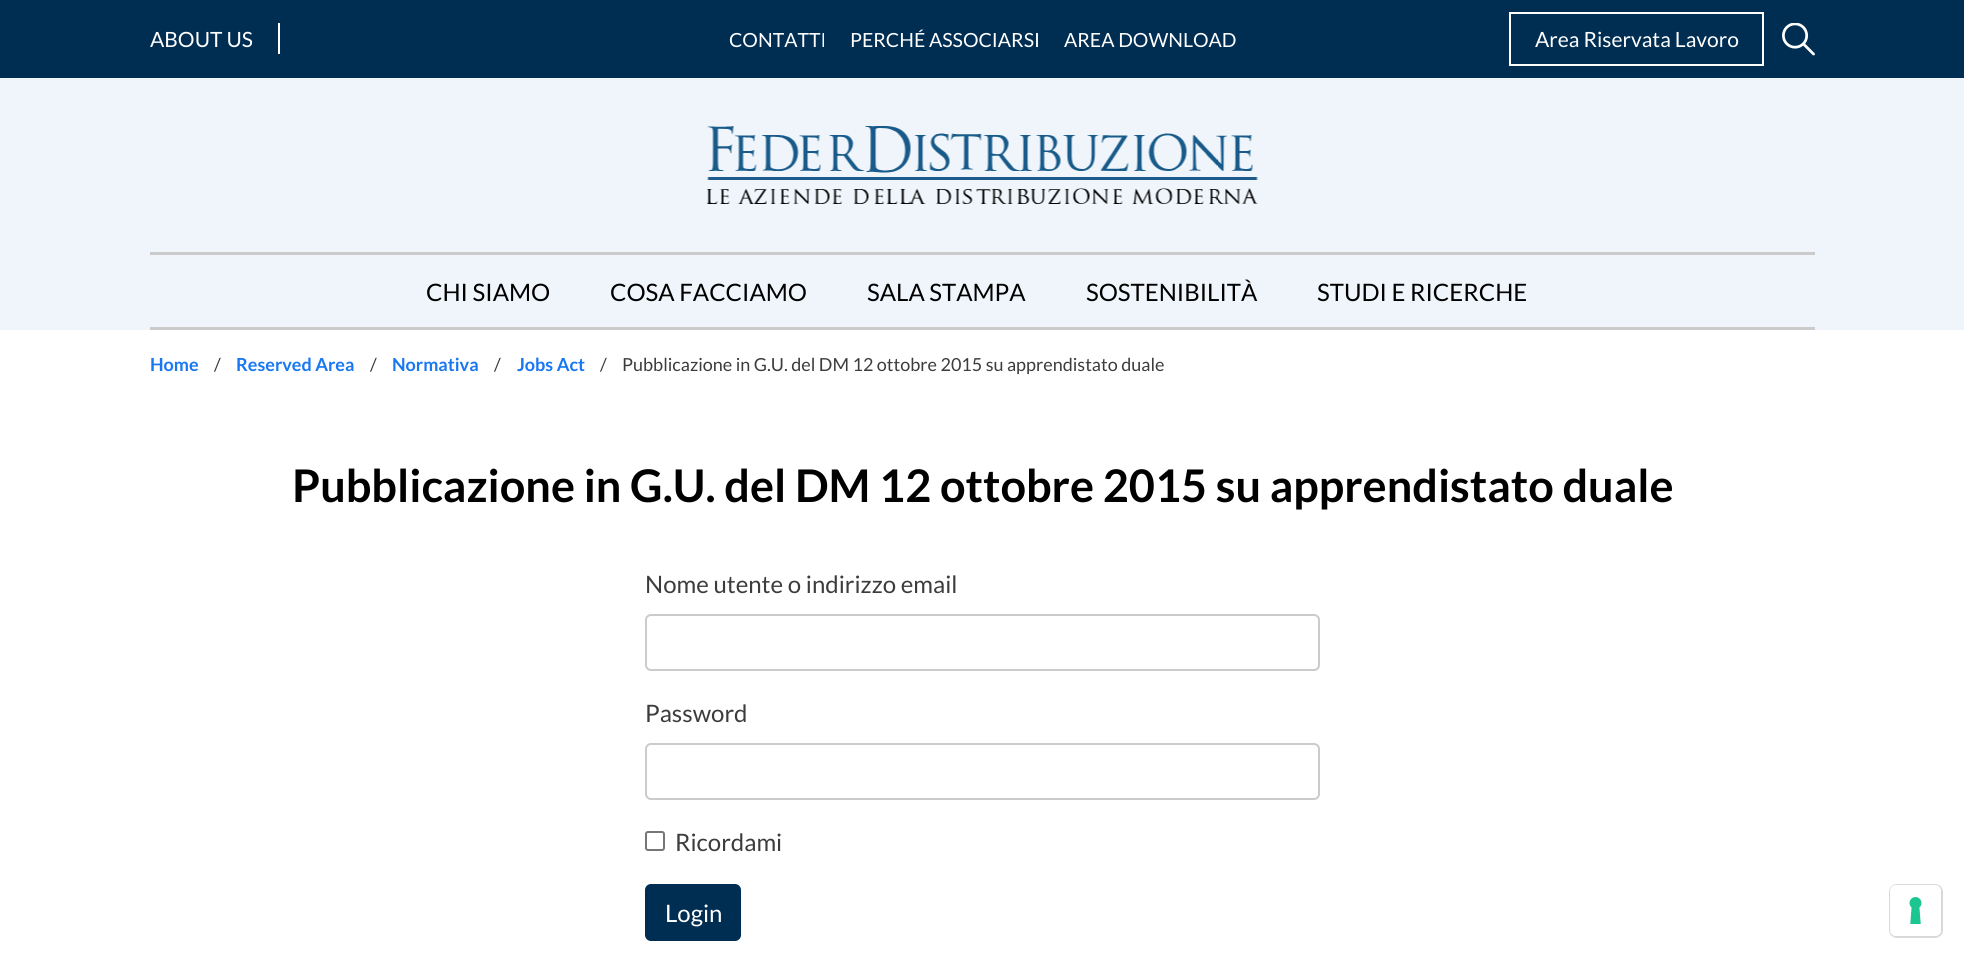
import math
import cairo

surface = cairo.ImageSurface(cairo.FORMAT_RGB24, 1964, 960)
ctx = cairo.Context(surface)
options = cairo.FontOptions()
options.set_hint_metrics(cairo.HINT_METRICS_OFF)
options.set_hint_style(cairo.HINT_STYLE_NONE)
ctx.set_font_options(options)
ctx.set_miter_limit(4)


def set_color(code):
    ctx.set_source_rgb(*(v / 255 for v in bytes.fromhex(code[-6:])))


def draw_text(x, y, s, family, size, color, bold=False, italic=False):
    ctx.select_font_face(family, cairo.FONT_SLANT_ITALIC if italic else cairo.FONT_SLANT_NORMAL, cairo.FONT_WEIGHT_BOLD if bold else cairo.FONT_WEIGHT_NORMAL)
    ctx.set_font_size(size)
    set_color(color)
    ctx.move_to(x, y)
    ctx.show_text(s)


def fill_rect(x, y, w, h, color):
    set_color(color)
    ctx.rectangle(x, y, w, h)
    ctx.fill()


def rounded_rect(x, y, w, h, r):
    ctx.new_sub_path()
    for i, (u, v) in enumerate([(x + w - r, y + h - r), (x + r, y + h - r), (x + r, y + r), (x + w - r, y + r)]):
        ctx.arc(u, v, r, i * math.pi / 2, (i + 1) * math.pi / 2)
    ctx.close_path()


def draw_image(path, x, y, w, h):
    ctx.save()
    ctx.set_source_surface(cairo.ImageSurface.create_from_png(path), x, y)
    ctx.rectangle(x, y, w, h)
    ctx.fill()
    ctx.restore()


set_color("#ffffff")
ctx.paint()
fill_rect(0, 0, 1964, 78, "#002d52")
fill_rect(278, 23, 2, 31, "#ffffff")
draw_text(150, 47, "ABOUT US", "Lato", 21, "#ffffff")
draw_text(729, 47, "CONTATTI", "Lato", 19.5, "#ffffff")
draw_text(850, 47, "PERCHÉ ASSOCIARSI", "Lato", 19.5, "#ffffff")
draw_text(1064, 47, "AREA DOWNLOAD", "Lato", 19.5, "#ffffff")
ctx.rectangle(1510, 13, 253, 52)
ctx.stroke()
draw_text(1535, 47, "Area Riservata Lavoro", "Lato", 21, "#ffffff")
draw_image("assets/img1.png", 1782, 23, 33, 33)
fill_rect(0, 78, 1964, 252, "#f0f5fb")
draw_image("assets/img2.png", 707, 126, 551, 78)
fill_rect(150, 252, 1665, 3, "#cbcbcb")
fill_rect(150, 327, 1665, 3, "#cbcbcb")
draw_text(426, 301, "CHI SIAMO", "Lato", 24, "#000000")
draw_text(610, 301, "COSA FACCIAMO", "Lato", 24, "#000000")
draw_text(867, 301, "SALA STAMPA", "Lato", 24, "#000000")
draw_text(1086, 301, "SOSTENIBILITÀ", "Lato", 24, "#000000")
draw_text(1317, 301, "STUDI E RICERCHE", "Lato", 24, "#000000")
draw_text(150, 371, "Home", "Lato", 18, "#1877f2", bold=True)
draw_text(214, 371, "/", "Lato", 18, "#3c3c3c")
draw_text(236, 371, "Reserved Area", "Lato", 18, "#1877f2", bold=True)
draw_text(370, 371, "/", "Lato", 18, "#3c3c3c")
draw_text(392, 371, "Normativa", "Lato", 18, "#1877f2", bold=True)
draw_text(494, 371, "/", "Lato", 18, "#3c3c3c")
draw_text(517, 371, "Jobs Act", "Lato", 18, "#1877f2", bold=True)
draw_text(600, 371, "/", "Lato", 18, "#3c3c3c")
draw_text(622, 371, "Pubblicazione in G.U. del DM 12 ottobre 2015 su apprendistato duale", "Lato", 18, "#3c3c3c")
draw_text(292, 502, "Pubblicazione in G.U. del DM 12 ottobre 2015 su apprendistato duale", "Lato", 45, "#000000", bold=True)
draw_text(645, 593, "Nome utente o indirizzo email", "Lato", 24, "#3c3c3c")
rounded_rect(646, 615, 673, 55, 5)
set_color("#cbcbcb")
ctx.stroke()
draw_text(645, 722, "Password", "Lato", 24, "#3c3c3c")
rounded_rect(646, 744, 673, 55, 5)
set_color("#cbcbcb")
ctx.stroke()
rounded_rect(646, 832, 18, 18, 2)
set_color("#767676")
ctx.stroke()
draw_text(675, 851, "Ricordami", "Lato", 24, "#3c3c3c")
set_color("#002d52")
rounded_rect(646, 885, 94, 55, 5)
ctx.fill_preserve()
ctx.stroke()
draw_text(665, 922, "Login", "Lato", 24, "#ffffff")
rounded_rect(1890, 885, 52, 52, 7)
set_color("#d9d9d9")
ctx.stroke()
set_color("#ffffff")
rounded_rect(1890, 885, 51, 51, 6)
ctx.fill()
draw_image("assets/img3.png", 1909, 897, 13, 27)
surface.write_to_png("output.png")
